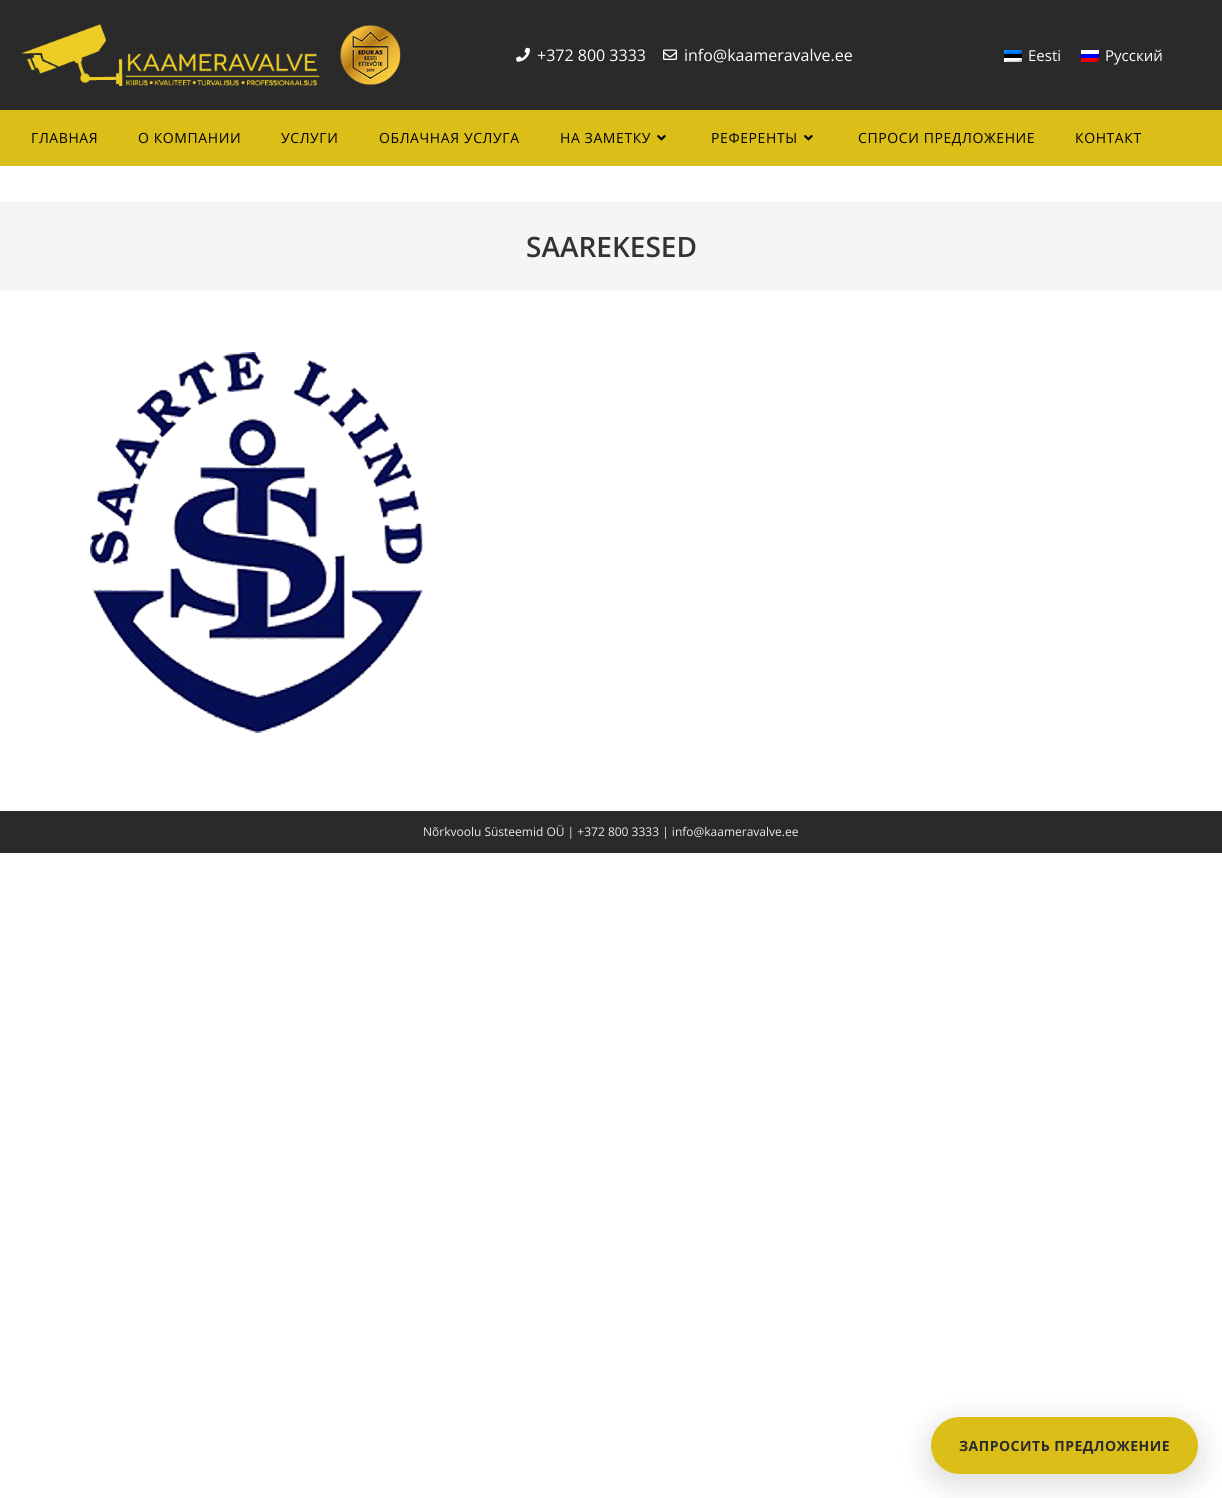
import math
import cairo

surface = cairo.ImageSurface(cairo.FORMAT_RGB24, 1222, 1498)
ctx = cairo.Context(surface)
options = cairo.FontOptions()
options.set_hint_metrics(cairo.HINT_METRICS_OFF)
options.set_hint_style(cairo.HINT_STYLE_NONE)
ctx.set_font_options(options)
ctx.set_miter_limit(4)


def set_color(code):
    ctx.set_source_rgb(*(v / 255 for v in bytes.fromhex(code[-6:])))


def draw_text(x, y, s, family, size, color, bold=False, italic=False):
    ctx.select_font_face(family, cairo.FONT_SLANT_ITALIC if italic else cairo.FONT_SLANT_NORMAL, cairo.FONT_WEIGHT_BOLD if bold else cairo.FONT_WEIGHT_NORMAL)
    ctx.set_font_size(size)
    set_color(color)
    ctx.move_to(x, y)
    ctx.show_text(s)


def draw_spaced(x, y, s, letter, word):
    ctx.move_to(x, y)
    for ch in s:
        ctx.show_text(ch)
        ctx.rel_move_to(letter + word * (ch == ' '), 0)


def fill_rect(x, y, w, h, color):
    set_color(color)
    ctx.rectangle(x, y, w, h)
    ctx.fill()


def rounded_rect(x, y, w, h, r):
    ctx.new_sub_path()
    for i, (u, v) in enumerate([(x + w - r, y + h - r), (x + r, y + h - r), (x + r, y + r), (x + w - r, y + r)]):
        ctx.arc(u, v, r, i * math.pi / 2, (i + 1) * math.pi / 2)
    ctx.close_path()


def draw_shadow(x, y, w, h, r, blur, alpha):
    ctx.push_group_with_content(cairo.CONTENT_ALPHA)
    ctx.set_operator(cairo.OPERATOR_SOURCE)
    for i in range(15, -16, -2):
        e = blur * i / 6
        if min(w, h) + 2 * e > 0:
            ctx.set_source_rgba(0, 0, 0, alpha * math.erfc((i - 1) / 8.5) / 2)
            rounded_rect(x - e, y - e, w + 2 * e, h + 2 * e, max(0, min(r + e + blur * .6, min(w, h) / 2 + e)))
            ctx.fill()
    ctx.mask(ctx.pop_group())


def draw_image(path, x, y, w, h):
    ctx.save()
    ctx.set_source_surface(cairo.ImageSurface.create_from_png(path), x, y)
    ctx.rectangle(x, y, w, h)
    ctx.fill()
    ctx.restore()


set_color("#ffffff")
ctx.paint()
fill_rect(0, 0, 1222, 110, "#2a2a2a")
draw_image("assets/img1.png", 21, 24, 380, 62)
draw_image("assets/img2.png", 516, 47, 14, 15)
draw_text(537, 61, "+372 800 3333", "Open Sans", 16, "#ffffff")
draw_image("assets/img3.png", 663, 49, 14, 11)
draw_text(684, 61, "info@kaameravalve.ee", "Open Sans", 16, "#ffffff")
draw_image("assets/img4.png", 1004, 50, 18, 12)
draw_text(1028, 61, "Eesti", "Open Sans", 15, "#ffffff")
draw_image("assets/img5.png", 1081, 50, 18, 12)
draw_text(1105, 61, "Русский", "Open Sans", 15, "#ffffff")
fill_rect(0, 110, 1222, 56, "#dbbf18")
ctx.set_font_size(14)
set_color("#000000")
draw_spaced(31, 143, "ГЛАВНАЯ", 0.6, 0)
draw_spaced(138, 143, "О КОМПАНИИ", 0.6, 0)
draw_spaced(281, 143, "УСЛУГИ", 0.6, 0)
draw_spaced(379, 143, "ОБЛАЧНАЯ УСЛУГА", 0.6, 0)
draw_spaced(560, 143, "НА ЗАМЕТКУ", 0.6, 0)
draw_image("assets/img6.png", 657, 135, 9, 6)
draw_spaced(711, 143, "РЕФЕРЕНТЫ", 0.6, 0)
draw_image("assets/img6.png", 804, 135, 9, 6)
draw_spaced(858, 143, "СПРОСИ ПРЕДЛОЖЕНИЕ", 0.6, 0)
draw_spaced(1075, 143, "КОНТАКТ", 0.6, 0)
fill_rect(0, 202, 1222, 89, "#f5f5f5")
draw_text(526, 257, "SAAREKESED", "Open Sans SemiBold", 28, "#333333")
draw_image("assets/img7.png", 90, 352, 333, 381)
fill_rect(0, 811, 1222, 42, "#2a2a2a")
draw_text(423, 836, "Nõrkvoolu Süsteemid OÜ | +372 800 3333 | info@kaameravalve.ee", "Open Sans", 12, "#eaeaea")
set_color("#000000")
draw_shadow(931, 1425, 267, 57, 28.5, 16, 0.15)
set_color("#dbbf18")
rounded_rect(931, 1417, 267, 57, 28.5)
ctx.fill()
ctx.select_font_face("Open Sans", cairo.FONT_SLANT_NORMAL, cairo.FONT_WEIGHT_BOLD)
ctx.set_font_size(14)
set_color("#2a2a2a")
draw_spaced(959, 1451, "ЗАПРОСИТЬ ПРЕДЛОЖЕНИЕ", 0.5, 0)
surface.write_to_png("output.png")
